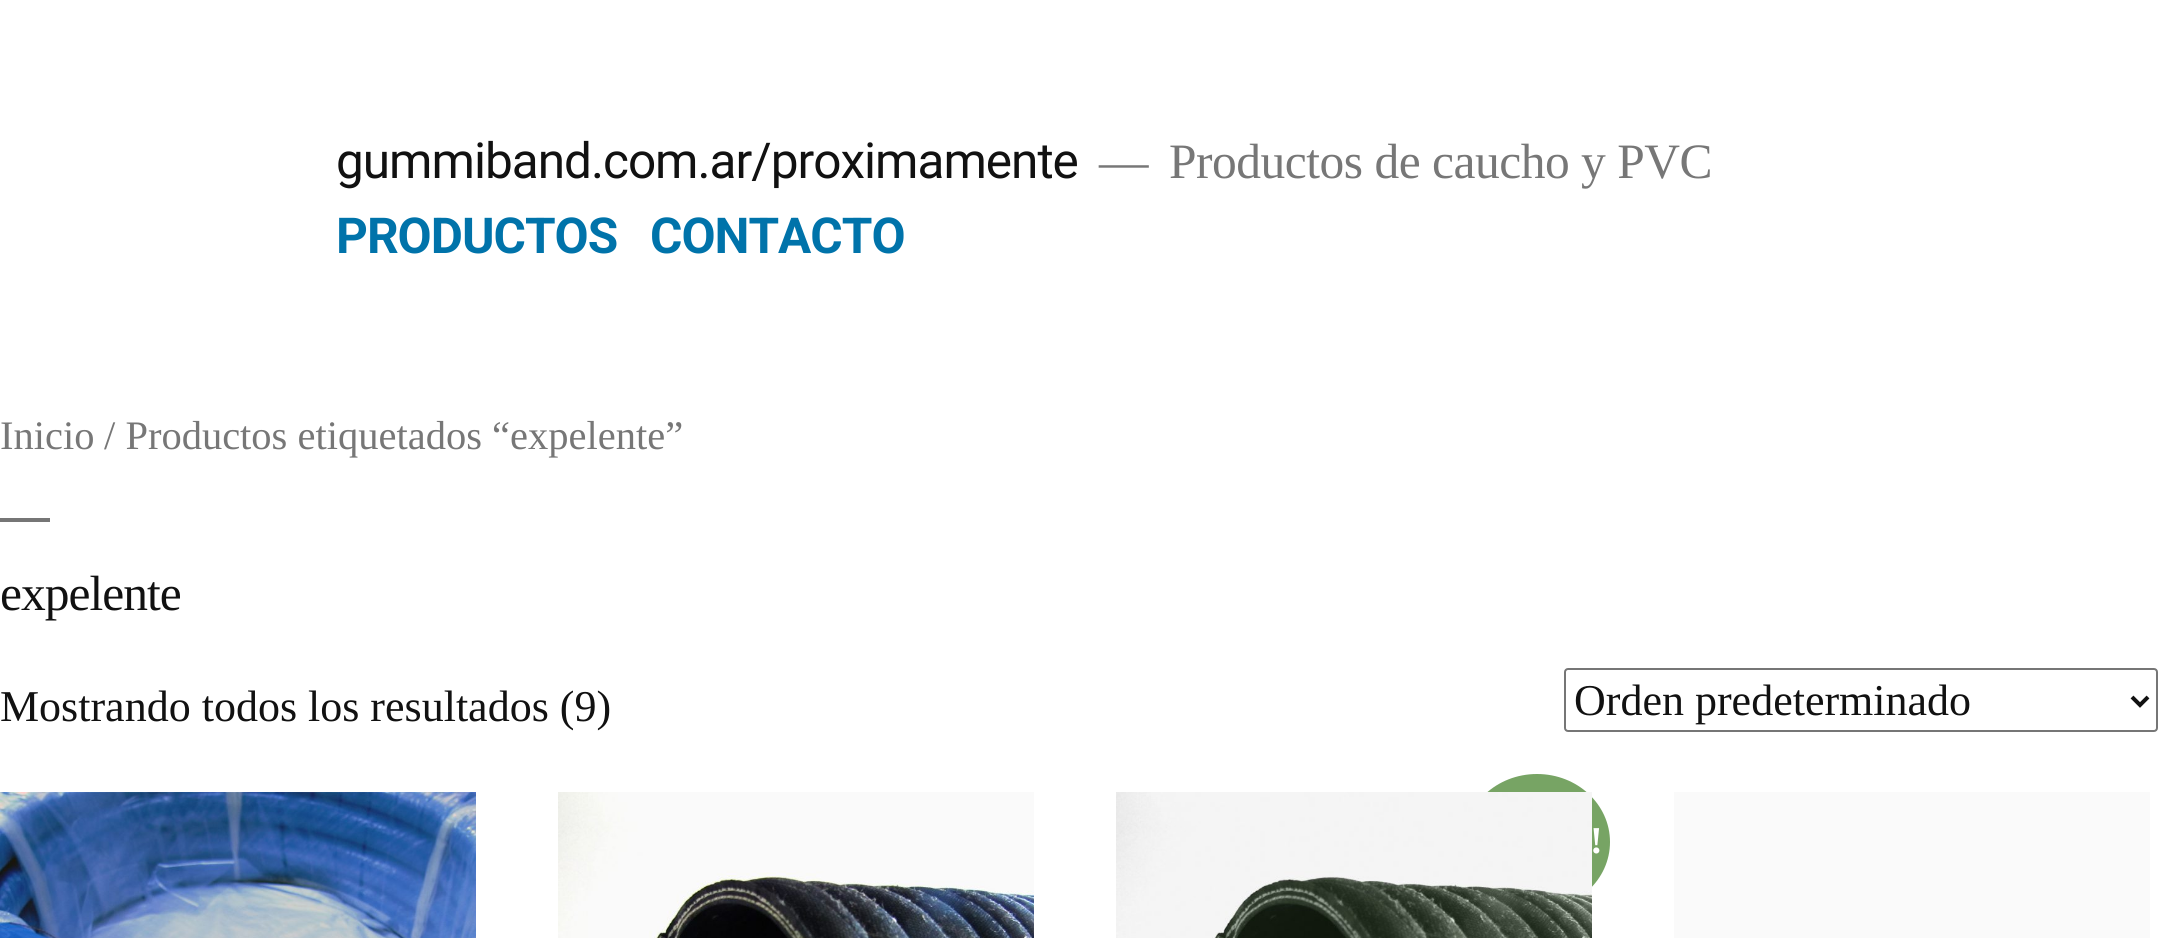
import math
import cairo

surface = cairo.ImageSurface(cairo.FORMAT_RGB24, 2158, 938)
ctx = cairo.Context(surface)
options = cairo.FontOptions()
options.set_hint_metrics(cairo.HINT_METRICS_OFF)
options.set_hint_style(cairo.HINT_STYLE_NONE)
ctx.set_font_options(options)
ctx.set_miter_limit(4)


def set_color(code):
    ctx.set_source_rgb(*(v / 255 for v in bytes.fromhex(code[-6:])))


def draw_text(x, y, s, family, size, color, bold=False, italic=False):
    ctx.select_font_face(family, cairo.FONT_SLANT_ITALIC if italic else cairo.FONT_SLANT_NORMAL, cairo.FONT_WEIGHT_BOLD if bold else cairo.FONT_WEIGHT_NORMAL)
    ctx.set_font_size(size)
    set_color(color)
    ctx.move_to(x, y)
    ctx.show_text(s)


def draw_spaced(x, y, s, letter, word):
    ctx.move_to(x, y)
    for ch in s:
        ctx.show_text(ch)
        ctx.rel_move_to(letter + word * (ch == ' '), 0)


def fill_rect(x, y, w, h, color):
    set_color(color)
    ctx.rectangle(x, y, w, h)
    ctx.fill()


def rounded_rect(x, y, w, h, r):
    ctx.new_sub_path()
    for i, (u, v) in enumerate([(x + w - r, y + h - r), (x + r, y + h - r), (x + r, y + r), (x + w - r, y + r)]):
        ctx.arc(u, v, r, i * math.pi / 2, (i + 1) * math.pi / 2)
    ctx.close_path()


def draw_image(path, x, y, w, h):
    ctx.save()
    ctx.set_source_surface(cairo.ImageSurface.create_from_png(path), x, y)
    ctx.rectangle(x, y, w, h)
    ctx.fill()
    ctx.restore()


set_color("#ffffff")
ctx.paint()
ctx.select_font_face("Roboto")
ctx.set_font_size(49.5)
set_color("#111111")
draw_spaced(336, 178, "gummiband.com.ar/proximamente", -1, 0)
ctx.select_font_face("Liberation Serif")
set_color("#777777")
draw_spaced(1099, 178, "—", -0.5, 0)
draw_spaced(1169, 178, "Productos de caucho y PVC", -0.5, 0)
ctx.select_font_face("Roboto", cairo.FONT_SLANT_NORMAL, cairo.FONT_WEIGHT_BOLD)
set_color("#0073aa")
draw_spaced(336, 253, "PRODUCTOS", -1, 0)
draw_spaced(650, 253, "CONTACTO", -1, 0)
draw_text(0, 449, "Inicio", "Liberation Serif", 40.5, "#777777")
draw_text(104, 449, "/ Productos etiquetados “expelente”", "Liberation Serif", 40.5, "#777777")
fill_rect(0, 518, 50, 4, "#767676")
ctx.set_font_size(49.5)
set_color("#111111")
draw_spaced(0, 610, "expelente", -1, 0)
draw_text(0, 721, "Mostrando todos los resultados (9)", "Liberation Serif", 44, "#111111")
rounded_rect(1565, 669, 592, 62, 3)
set_color("#767676")
ctx.stroke()
ctx.new_path()
ctx.move_to(2132, 697)
ctx.line_to(2140, 705)
ctx.line_to(2148, 697)
set_color("#111111")
ctx.set_line_width(4)
ctx.stroke()
draw_text(1574, 715, "Orden predeterminado", "Liberation Serif", 44, "#111111")
draw_image("assets/img1.png", 0, 792, 476, 146)
draw_image("assets/img2.png", 558, 792, 476, 146)
set_color("#77a464")
ctx.new_path()
ctx.move_to(1537, 774)
ctx.curve_to(1577.5, 774, 1610, 804.5, 1610, 842)
ctx.curve_to(1610, 879.5, 1577.5, 910, 1537, 910)
ctx.curve_to(1496.5, 910, 1464, 879.5, 1464, 842)
ctx.curve_to(1464, 804.5, 1496.5, 774, 1537, 774)
ctx.close_path()
ctx.fill()
draw_image("assets/img3.png", 1116, 792, 476, 146)
draw_text(1590, 853, "!", "Liberation Serif", 38, "#ffffff", bold=True)
fill_rect(1674, 792, 476, 146, "#fafafa")
surface.write_to_png("output.png")
